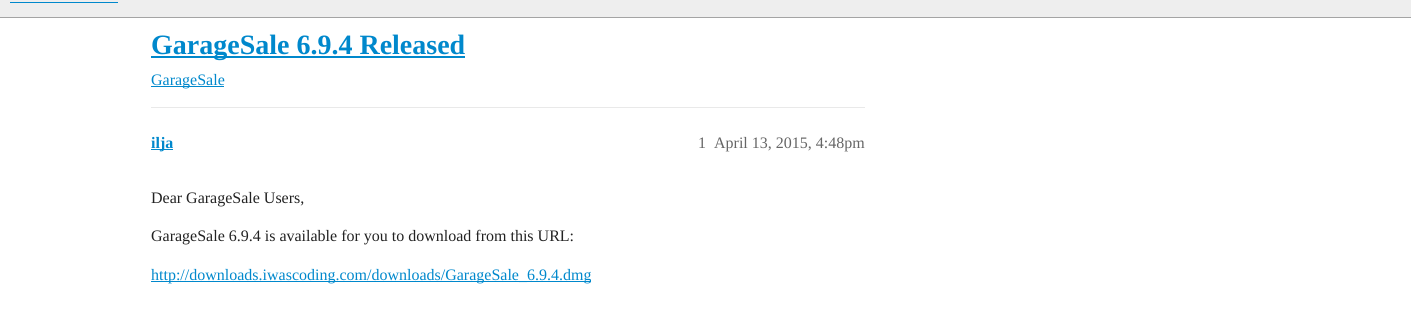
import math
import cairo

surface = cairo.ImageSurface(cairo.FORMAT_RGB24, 1411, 311)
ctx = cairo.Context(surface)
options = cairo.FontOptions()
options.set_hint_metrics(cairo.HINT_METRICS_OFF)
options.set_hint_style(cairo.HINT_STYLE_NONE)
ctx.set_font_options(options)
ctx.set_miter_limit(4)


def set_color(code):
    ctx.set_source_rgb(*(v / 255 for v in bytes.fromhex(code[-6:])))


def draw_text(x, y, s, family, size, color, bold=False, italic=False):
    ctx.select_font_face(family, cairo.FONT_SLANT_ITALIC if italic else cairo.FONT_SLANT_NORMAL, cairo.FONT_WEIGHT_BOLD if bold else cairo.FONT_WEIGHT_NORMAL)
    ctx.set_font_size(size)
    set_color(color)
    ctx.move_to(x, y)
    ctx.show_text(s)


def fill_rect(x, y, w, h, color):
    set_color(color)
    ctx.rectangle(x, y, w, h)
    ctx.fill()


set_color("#ffffff")
ctx.paint()
fill_rect(0, 0, 1411, 17, "#eeeeee")
fill_rect(0, 17, 1411, 1, "#a4a4a4")
fill_rect(10, 2, 108, 1, "#0088cc")
fill_rect(151, 56, 314, 2, "#0088cc")
draw_text(151, 54, "GarageSale 6.9.4 Released", "Liberation Serif", 28, "#0088cc", bold=True)
fill_rect(151, 86, 73, 1, "#0088cc")
draw_text(151, 85, "GarageSale", "Liberation Serif", 16, "#0088cc")
fill_rect(151, 107, 714, 1, "#e9e9e9")
fill_rect(151, 149, 22, 1, "#0088cc")
draw_text(151, 148, "ilja", "Liberation Serif", 16, "#0088cc", bold=True)
draw_text(698, 148, "1", "Liberation Serif", 16, "#666666")
draw_text(714, 148, "April 13, 2015, 4:48pm", "Liberation Serif", 16, "#666666")
draw_text(151, 203, "Dear GarageSale Users,", "Liberation Serif", 16, "#222222")
draw_text(151, 241, "GarageSale 6.9.4 is available for you to download from this URL:", "Liberation Serif", 16, "#222222")
fill_rect(151, 281, 440, 1, "#0088cc")
draw_text(151, 280, "http://downloads.iwascoding.com/downloads/GarageSale_6.9.4.dmg", "Liberation Serif", 16, "#0088cc")
surface.write_to_png("output.png")
